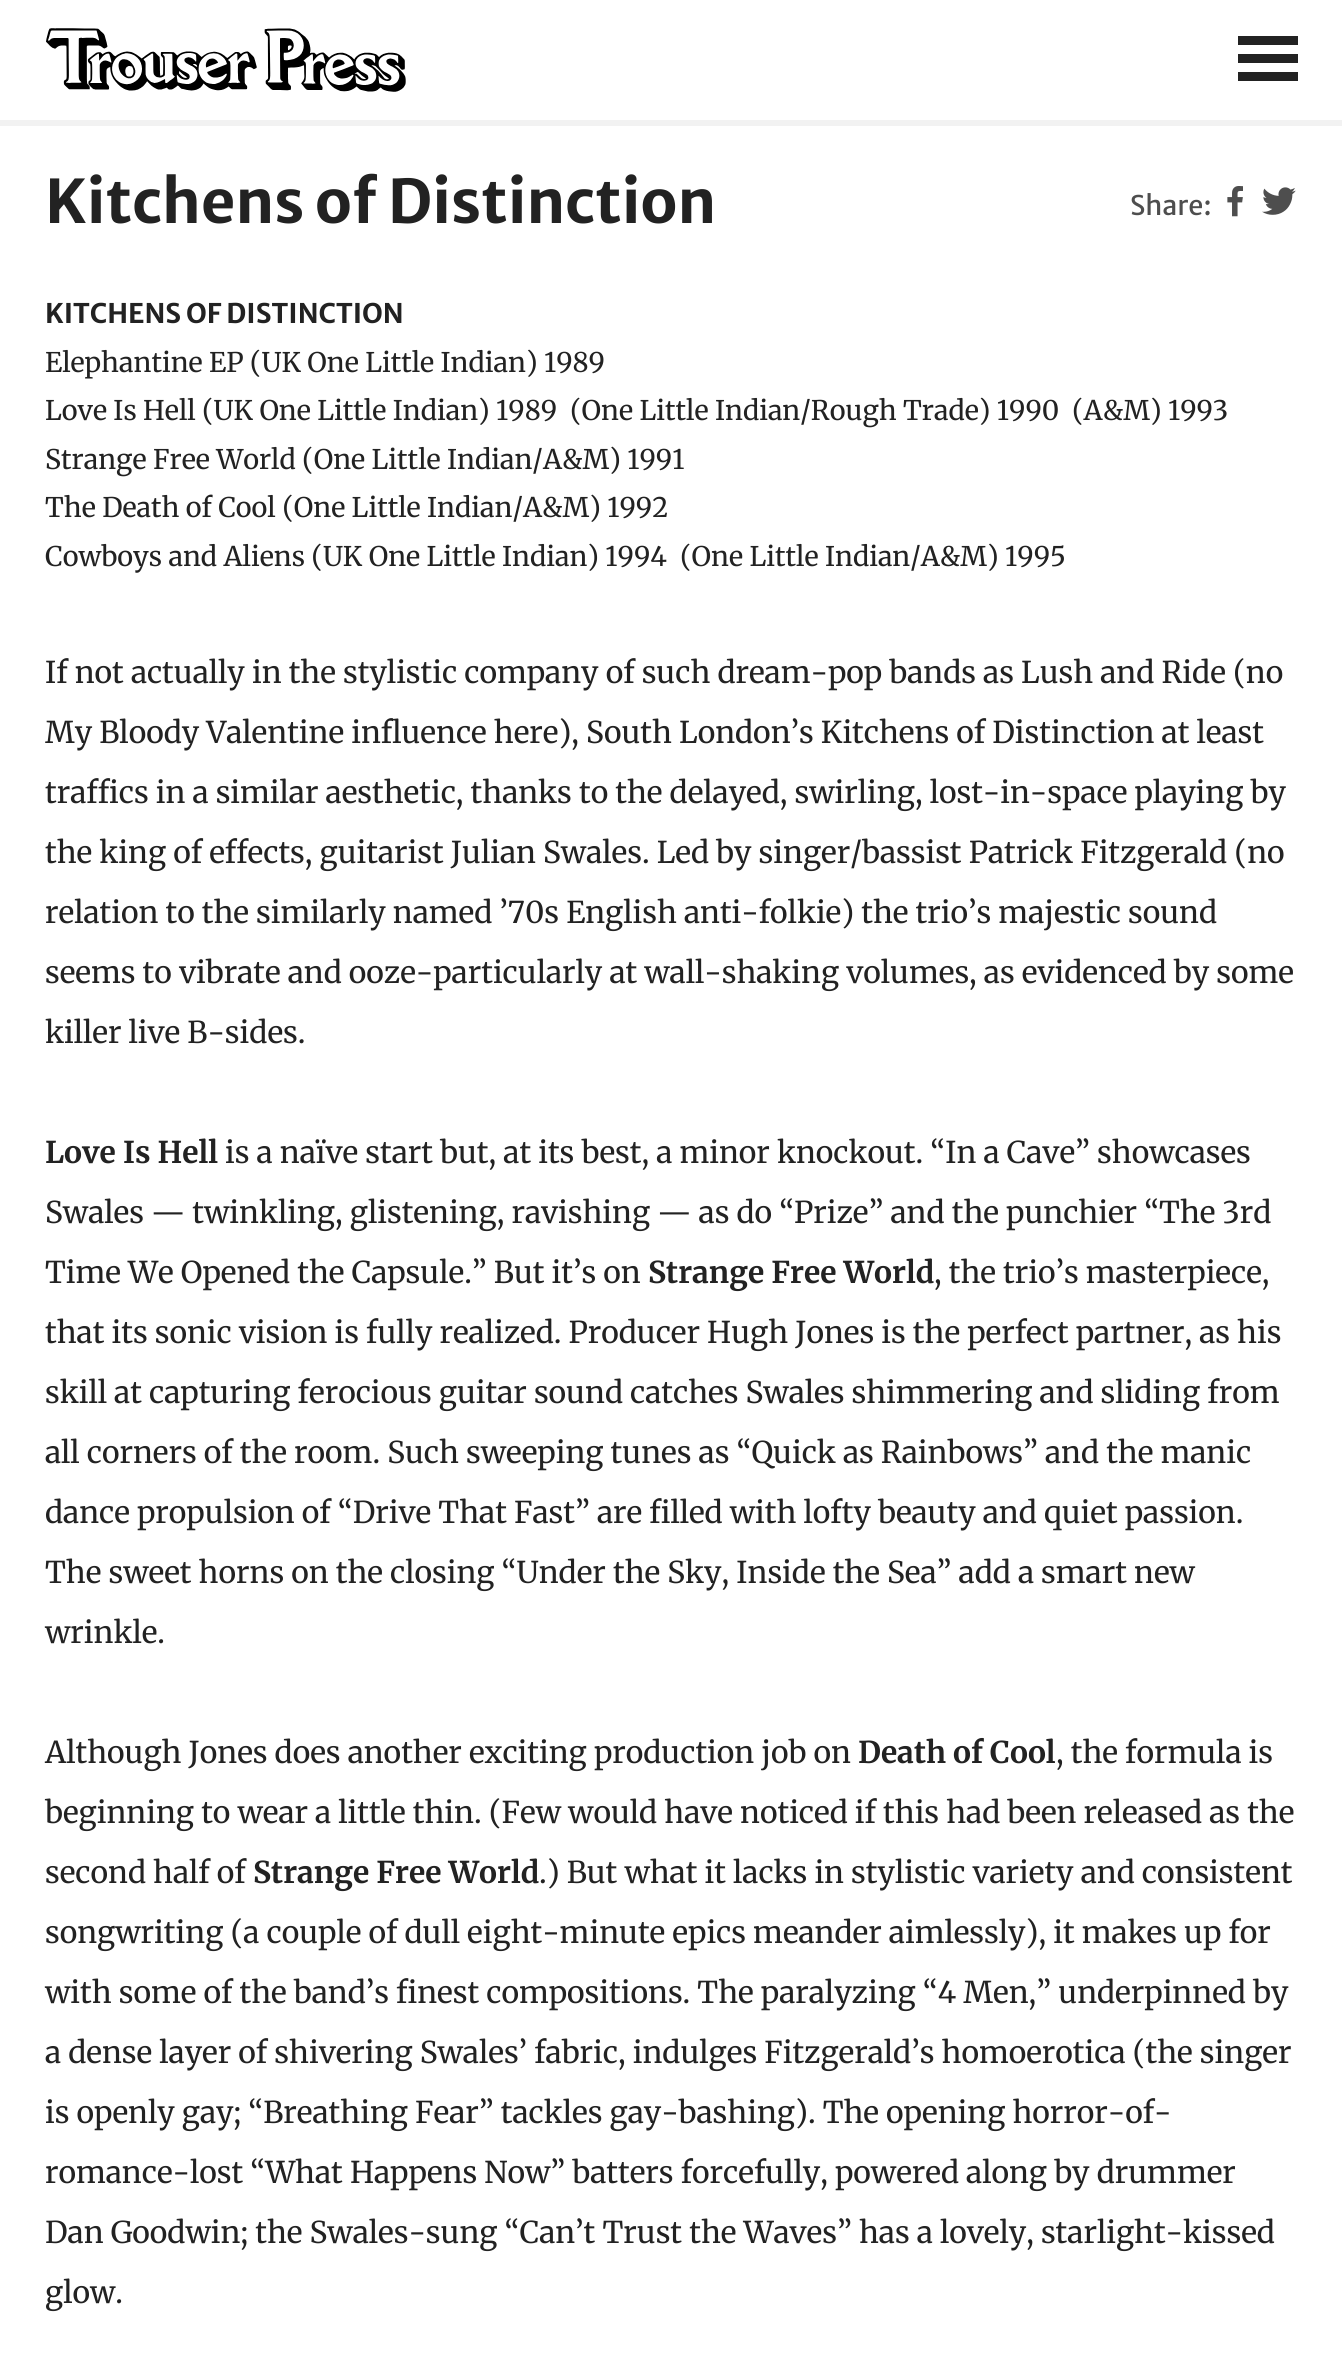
import math
import cairo

surface = cairo.ImageSurface(cairo.FORMAT_RGB24, 1342, 2380)
ctx = cairo.Context(surface)
options = cairo.FontOptions()
options.set_hint_metrics(cairo.HINT_METRICS_OFF)
options.set_hint_style(cairo.HINT_STYLE_NONE)
ctx.set_font_options(options)
ctx.set_miter_limit(4)


def set_color(code):
    ctx.set_source_rgb(*(v / 255 for v in bytes.fromhex(code[-6:])))


def draw_text(x, y, s, family, size, color, bold=False, italic=False):
    ctx.select_font_face(family, cairo.FONT_SLANT_ITALIC if italic else cairo.FONT_SLANT_NORMAL, cairo.FONT_WEIGHT_BOLD if bold else cairo.FONT_WEIGHT_NORMAL)
    ctx.set_font_size(size)
    set_color(color)
    ctx.move_to(x, y)
    ctx.show_text(s)


def fill_rect(x, y, w, h, color):
    set_color(color)
    ctx.rectangle(x, y, w, h)
    ctx.fill()


def draw_image(path, x, y, w, h):
    ctx.save()
    ctx.set_source_surface(cairo.ImageSurface.create_from_png(path), x, y)
    ctx.rectangle(x, y, w, h)
    ctx.fill()
    ctx.restore()


set_color("#ffffff")
ctx.paint()
fill_rect(0, 120, 1342, 6, "#f2f2f2")
draw_image("assets/img1.png", 46, 28, 360, 64)
set_color("#222222")
ctx.new_path()
ctx.move_to(1298, 45)
ctx.line_to(1298, 36)
ctx.line_to(1238, 36)
ctx.line_to(1238, 45)
ctx.close_path()
ctx.move_to(1298, 63)
ctx.line_to(1298, 54)
ctx.line_to(1238, 54)
ctx.line_to(1238, 63)
ctx.close_path()
ctx.move_to(1298, 81)
ctx.line_to(1298, 72)
ctx.line_to(1238, 72)
ctx.line_to(1238, 81)
ctx.close_path()
ctx.fill()
draw_text(45, 223, "Kitchens of Distinction", "Merriweather Sans", 60, "#222222", bold=True)
draw_text(1130, 215, "Share:", "Merriweather Sans", 27, "#4e4e4e")
draw_image("assets/img2.png", 1227, 186, 16, 31)
draw_image("assets/img3.png", 1262, 187, 34, 28)
draw_text(45, 323, "KITCHENS OF DISTINCTION", "Merriweather Sans", 27, "#222222", bold=True)
draw_text(45, 372, "Elephantine EP (UK One Little Indian) 1989", "Merriweather", 27, "#222222")
draw_text(45, 420, "Love Is Hell (UK One Little Indian) 1989", "Merriweather", 27, "#222222")
draw_text(570, 420, "(One Little Indian/Rough Trade) 1990", "Merriweather", 27, "#222222")
draw_text(1072, 420, "(A&M) 1993", "Merriweather", 27, "#222222")
draw_text(45, 469, "Strange Free World (One Little Indian/A&M) 1991", "Merriweather", 27, "#222222")
draw_text(45, 517, "The Death of Cool (One Little Indian/A&M) 1992", "Merriweather", 27, "#222222")
draw_text(45, 566, "Cowboys and Aliens (UK One Little Indian) 1994", "Merriweather", 27, "#222222")
draw_text(680, 566, "(One Little Indian/A&M) 1995", "Merriweather", 27, "#222222")
draw_text(45, 683, "If not actually in the stylistic company of such dream-pop bands as Lush and Ride (no", "Merriweather", 30, "#222222")
draw_text(45, 743, "My Bloody Valentine influence here), South London’s Kitchens of Distinction at least", "Merriweather", 30, "#222222")
draw_text(45, 803, "traffics in a similar aesthetic, thanks to the delayed, swirling, lost-in-space playing by", "Merriweather", 30, "#222222")
draw_text(45, 863, "the king of effects, guitarist Julian Swales. Led by singer/bassist Patrick Fitzgerald (no", "Merriweather", 30, "#222222")
draw_text(45, 923, "relation to the similarly named ’70s English anti-folkie) the trio’s majestic sound", "Merriweather", 30, "#222222")
draw_text(45, 983, "seems to vibrate and ooze-particularly at wall-shaking volumes, as evidenced by some", "Merriweather", 30, "#222222")
draw_text(45, 1043, "killer live B-sides.", "Merriweather", 30, "#222222")
draw_text(45, 1163, "Love Is Hell", "Merriweather", 30, "#222222", bold=True)
draw_text(225, 1163, "is a naïve start but, at its best, a minor knockout. “In a Cave” showcases", "Merriweather", 30, "#222222")
draw_text(45, 1223, "Swales — twinkling, glistening, ravishing — as do “Prize” and the punchier “The 3rd", "Merriweather", 30, "#222222")
draw_text(45, 1283, "Time We Opened the Capsule.” But it’s on", "Merriweather", 30, "#222222")
draw_text(648, 1283, "Strange Free World", "Merriweather", 30, "#222222", bold=True)
draw_text(934, 1283, ", the trio’s masterpiece,", "Merriweather", 30, "#222222")
draw_text(45, 1343, "that its sonic vision is fully realized. Producer Hugh Jones is the perfect partner, as his", "Merriweather", 30, "#222222")
draw_text(45, 1403, "skill at capturing ferocious guitar sound catches Swales shimmering and sliding from", "Merriweather", 30, "#222222")
draw_text(45, 1463, "all corners of the room. Such sweeping tunes as “Quick as Rainbows” and the manic", "Merriweather", 30, "#222222")
draw_text(45, 1523, "dance propulsion of “Drive That Fast” are filled with lofty beauty and quiet passion.", "Merriweather", 30, "#222222")
draw_text(45, 1583, "The sweet horns on the closing “Under the Sky, Inside the Sea” add a smart new", "Merriweather", 30, "#222222")
draw_text(45, 1643, "wrinkle.", "Merriweather", 30, "#222222")
draw_text(45, 1763, "Although Jones does another exciting production job on", "Merriweather", 30, "#222222")
draw_text(858, 1763, "Death of Cool", "Merriweather", 30, "#222222", bold=True)
draw_text(1056, 1763, ", the formula is", "Merriweather", 30, "#222222")
draw_text(45, 1823, "beginning to wear a little thin. (Few would have noticed if this had been released as the", "Merriweather", 30, "#222222")
draw_text(45, 1883, "second half of", "Merriweather", 30, "#222222")
draw_text(253, 1883, "Strange Free World", "Merriweather", 30, "#222222", bold=True)
draw_text(539, 1883, ".) But what it lacks in stylistic variety and consistent", "Merriweather", 30, "#222222")
draw_text(45, 1943, "songwriting (a couple of dull eight-minute epics meander aimlessly), it makes up for", "Merriweather", 30, "#222222")
draw_text(45, 2003, "with some of the band’s finest compositions. The paralyzing “4 Men,” underpinned by", "Merriweather", 30, "#222222")
draw_text(45, 2063, "a dense layer of shivering Swales’ fabric, indulges Fitzgerald’s homoerotica (the singer", "Merriweather", 30, "#222222")
draw_text(45, 2123, "is openly gay; “Breathing Fear” tackles gay-bashing). The opening horror-of-", "Merriweather", 30, "#222222")
draw_text(45, 2183, "romance-lost “What Happens Now” batters forcefully, powered along by drummer", "Merriweather", 30, "#222222")
draw_text(45, 2243, "Dan Goodwin; the Swales-sung “Can’t Trust the Waves” has a lovely, starlight-kissed", "Merriweather", 30, "#222222")
draw_text(45, 2303, "glow.", "Merriweather", 30, "#222222")
surface.write_to_png("output.png")
